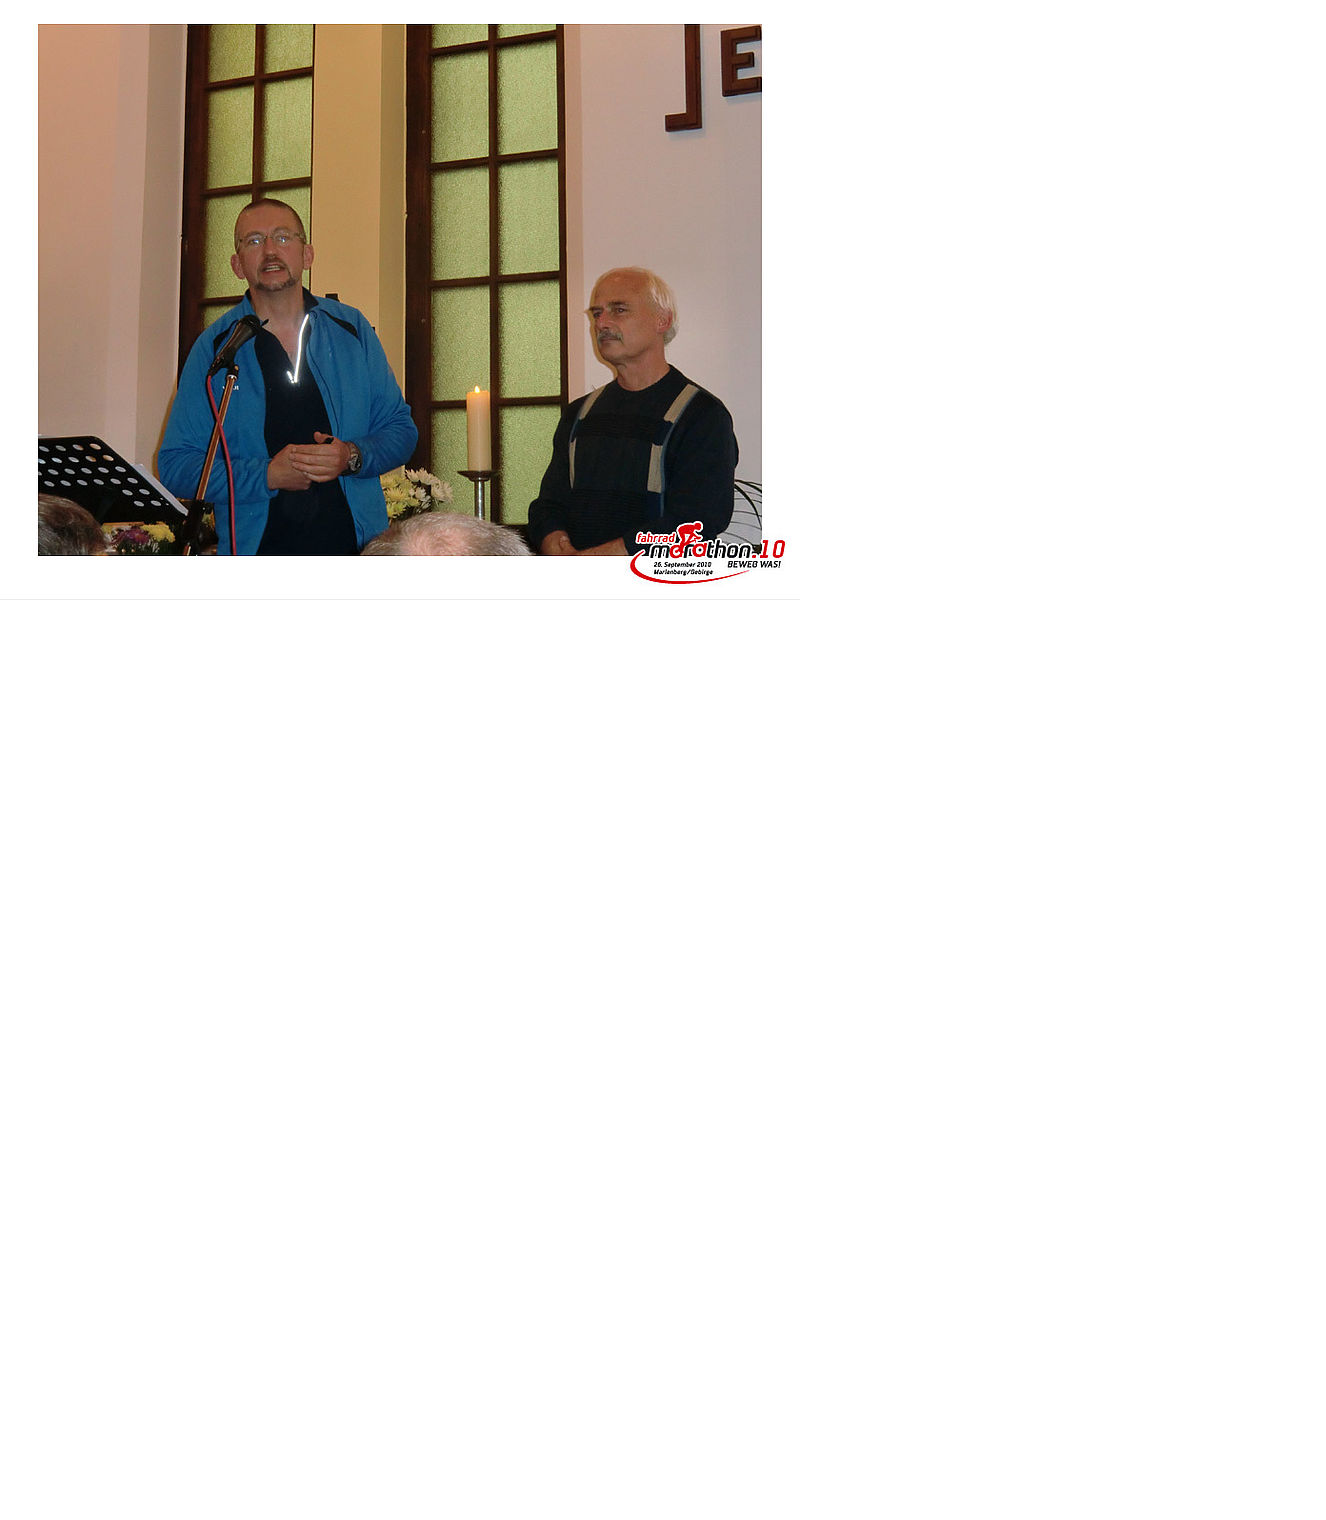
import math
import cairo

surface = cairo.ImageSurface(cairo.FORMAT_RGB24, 1326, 1520)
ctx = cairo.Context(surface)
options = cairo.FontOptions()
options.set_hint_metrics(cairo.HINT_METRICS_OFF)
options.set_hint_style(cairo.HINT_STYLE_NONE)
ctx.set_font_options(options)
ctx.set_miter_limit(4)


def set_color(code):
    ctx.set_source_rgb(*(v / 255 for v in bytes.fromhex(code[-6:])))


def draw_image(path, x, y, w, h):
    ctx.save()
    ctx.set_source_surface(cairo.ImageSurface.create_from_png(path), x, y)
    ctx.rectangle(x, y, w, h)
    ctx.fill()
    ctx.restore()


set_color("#ffffff")
ctx.paint()
draw_image("assets/img1.png", 0, 24, 800, 576)
surface.write_to_png("output.png")
